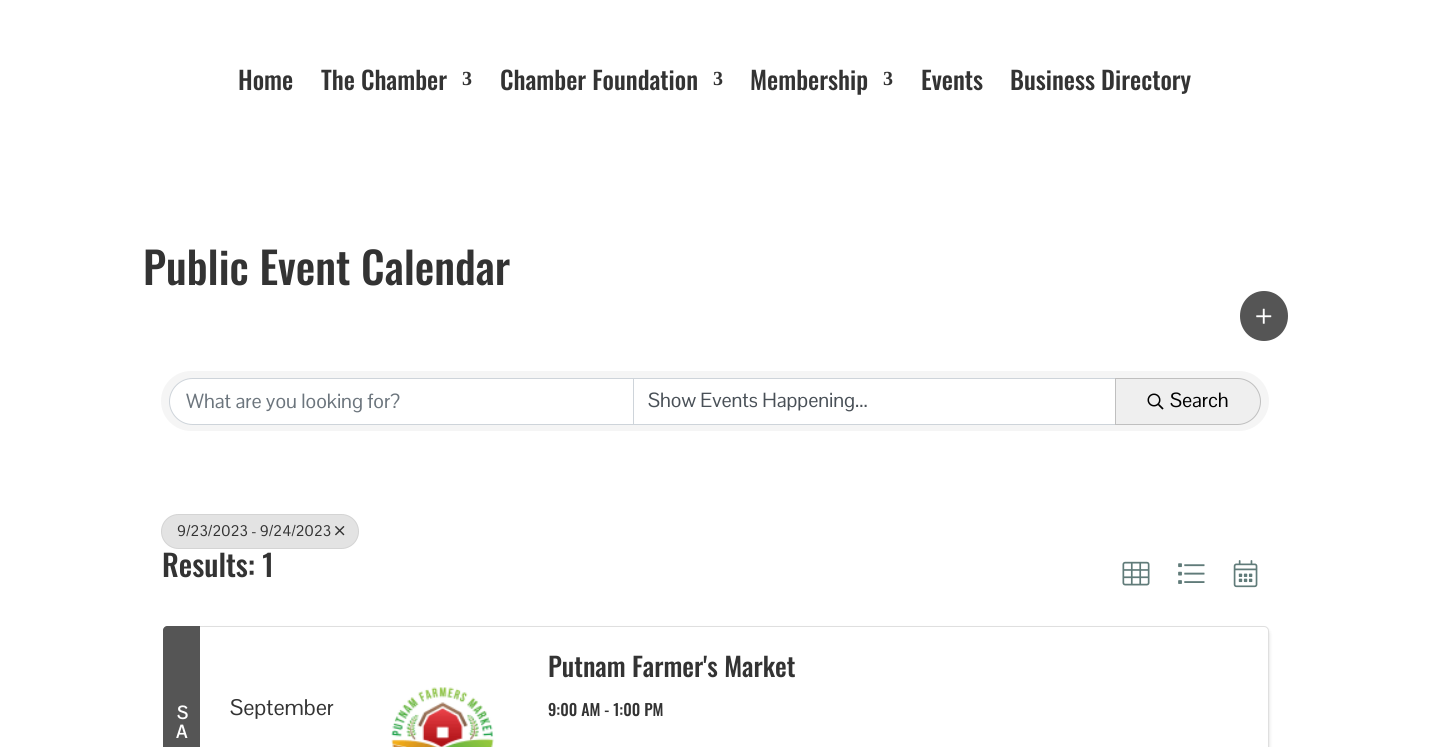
import math
import cairo

surface = cairo.ImageSurface(cairo.FORMAT_RGB24, 1430, 747)
ctx = cairo.Context(surface)
options = cairo.FontOptions()
options.set_hint_metrics(cairo.HINT_METRICS_OFF)
options.set_hint_style(cairo.HINT_STYLE_NONE)
ctx.set_font_options(options)
ctx.set_miter_limit(4)


def set_color(code):
    ctx.set_source_rgb(*(v / 255 for v in bytes.fromhex(code[-6:])))


def draw_text(x, y, s, family, size, color, bold=False, italic=False):
    ctx.select_font_face(family, cairo.FONT_SLANT_ITALIC if italic else cairo.FONT_SLANT_NORMAL, cairo.FONT_WEIGHT_BOLD if bold else cairo.FONT_WEIGHT_NORMAL)
    ctx.set_font_size(size)
    set_color(color)
    ctx.move_to(x, y)
    ctx.show_text(s)


def rounded_rect(x, y, w, h, r):
    ctx.new_sub_path()
    for i, (u, v) in enumerate([(x + w - r, y + h - r), (x + r, y + h - r), (x + r, y + r), (x + w - r, y + r)]):
        ctx.arc(u, v, r, i * math.pi / 2, (i + 1) * math.pi / 2)
    ctx.close_path()


def draw_shadow(x, y, w, h, r, blur, alpha):
    ctx.push_group_with_content(cairo.CONTENT_ALPHA)
    ctx.set_operator(cairo.OPERATOR_SOURCE)
    for i in range(15, -16, -2):
        e = blur * i / 6
        if min(w, h) + 2 * e > 0:
            ctx.set_source_rgba(0, 0, 0, alpha * math.erfc((i - 1) / 8.5) / 2)
            rounded_rect(x - e, y - e, w + 2 * e, h + 2 * e, max(0, min(r + e + blur * .6, min(w, h) / 2 + e)))
            ctx.fill()
    ctx.mask(ctx.pop_group())


def draw_image(path, x, y, w, h):
    ctx.save()
    ctx.set_source_surface(cairo.ImageSurface.create_from_png(path), x, y)
    ctx.rectangle(x, y, w, h)
    ctx.fill()
    ctx.restore()


set_color("#ffffff")
ctx.paint()
draw_text(238, 90, "Home", "Oswald Medium", 25, "#333333")
draw_text(321, 90, "The Chamber", "Oswald Medium", 25, "#333333")
draw_text(462, 85, "3", "Liberation Serif", 20, "#333333", bold=True)
draw_text(500, 90, "Chamber Foundation", "Oswald Medium", 25, "#333333")
draw_text(713, 85, "3", "Liberation Serif", 20, "#333333", bold=True)
draw_text(750, 90, "Membership", "Oswald Medium", 25, "#333333")
draw_text(883, 85, "3", "Liberation Serif", 20, "#333333", bold=True)
draw_text(921, 90, "Events", "Oswald Medium", 25, "#333333")
draw_text(1010, 90, "Business Directory", "Oswald Medium", 25, "#333333")
draw_text(143, 285, "Public Event Calendar", "Oswald Medium", 43.75, "#333333")
set_color("#555555")
ctx.new_path()
ctx.move_to(1264, 291)
ctx.curve_to(1277.5, 291, 1288, 302, 1288, 316)
ctx.curve_to(1288, 330, 1277.5, 341, 1264, 341)
ctx.curve_to(1250.5, 341, 1240, 330, 1240, 316)
ctx.curve_to(1240, 302, 1250.5, 291, 1264, 291)
ctx.close_path()
ctx.fill()
draw_image("assets/img1.png", 1256, 308, 16, 16)
set_color("#f5f5f5")
rounded_rect(161, 371, 1108, 60, 30)
ctx.fill()
set_color("#ffffff")
ctx.new_path()
ctx.move_to(192.5, 378.5)
ctx.line_to(633.5, 378.5)
ctx.line_to(633.5, 424.5)
ctx.line_to(192.5, 424.5)
ctx.curve_to(180, 424.5, 169.5, 414, 169.5, 401.5)
ctx.curve_to(169.5, 389, 180, 378.5, 192.5, 378.5)
ctx.close_path()
ctx.fill_preserve()
set_color("#ced4da")
ctx.set_line_width(1)
ctx.stroke()
draw_text(186, 408, "What are you looking for?", "Pontano Sans", 20, "#6c757d")
set_color("#ffffff")
ctx.rectangle(633.5, 378.5, 482, 46)
ctx.fill_preserve()
set_color("#ced4da")
ctx.stroke()
draw_text(648, 407, "Show Events Happening...", "Pontano Sans", 20, "#495057")
set_color("#efefef")
ctx.new_path()
ctx.move_to(1115, 378)
ctx.line_to(1237.5, 378)
ctx.curve_to(1250.5, 378, 1261, 388.5, 1261, 401.5)
ctx.curve_to(1261, 414.5, 1250.5, 425, 1237.5, 425)
ctx.line_to(1115, 425)
ctx.close_path()
ctx.fill()
ctx.new_path()
ctx.move_to(1115.5, 378.5)
ctx.line_to(1237.5, 378.5)
ctx.curve_to(1250, 378.5, 1260.5, 389, 1260.5, 401.5)
ctx.curve_to(1260.5, 414, 1250, 424.5, 1237.5, 424.5)
ctx.line_to(1115.5, 424.5)
ctx.close_path()
ctx.set_source_rgba(0, 0, 0, 0.2)
ctx.stroke()
draw_image("assets/img2.png", 1147, 393, 17, 17)
draw_text(1170, 407, "Search", "Pontano Sans", 20, "#000000")
set_color("#e3e3e3")
rounded_rect(161, 514, 198, 35, 17.5)
ctx.fill()
rounded_rect(161.5, 514.5, 197, 34, 17)
ctx.set_source_rgba(0, 0, 0, 0.07)
ctx.stroke()
draw_text(177, 536, "9/23/2023 - 9/24/2023", "Pontano Sans", 15, "#333333")
draw_image("assets/img3.png", 335, 526, 10, 10)
draw_text(162, 577, "Results: 1", "Oswald Medium", 30, "#333333")
draw_image("assets/img4.png", 1122, 561, 28, 25)
draw_image("assets/img5.png", 1178, 563, 27, 21)
draw_image("assets/img6.png", 1233, 560, 25, 28)
set_color("#000000")
draw_shadow(199, 629, 1070, 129, 5, 2, 0.15)
set_color("#ffffff")
ctx.new_path()
ctx.move_to(199.5, 626.5)
ctx.line_to(1264, 626.5)
ctx.curve_to(1266.5, 626.5, 1268.5, 628.5, 1268.5, 631)
ctx.line_to(1268.5, 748)
ctx.curve_to(1268.5, 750.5, 1266.5, 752.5, 1264, 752.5)
ctx.line_to(199.5, 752.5)
ctx.close_path()
ctx.fill_preserve()
set_color("#dfdfdf")
ctx.stroke()
set_color("#555555")
ctx.new_path()
ctx.move_to(167, 626)
ctx.line_to(200, 626)
ctx.line_to(200, 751)
ctx.line_to(167, 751)
ctx.curve_to(165, 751, 163, 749, 163, 747)
ctx.line_to(163, 630)
ctx.curve_to(163, 628, 165, 626, 167, 626)
ctx.close_path()
ctx.fill()
draw_text(177, 719, "S", "Pontano Sans", 18, "#ffffff", bold=True)
draw_text(176, 738, "A", "Pontano Sans", 18, "#ffffff", bold=True)
draw_text(230, 715, "September", "Pontano Sans", 22, "#333333")
draw_image("assets/img7.png", 391, 687, 103, 60)
draw_text(548, 677, "Putnam Farmer's Market", "Oswald Medium", 26.25, "#333333")
draw_text(548, 716, "9:00 AM - 1:00 PM", "Oswald Medium", 16, "#333333")
surface.write_to_png("output.png")
